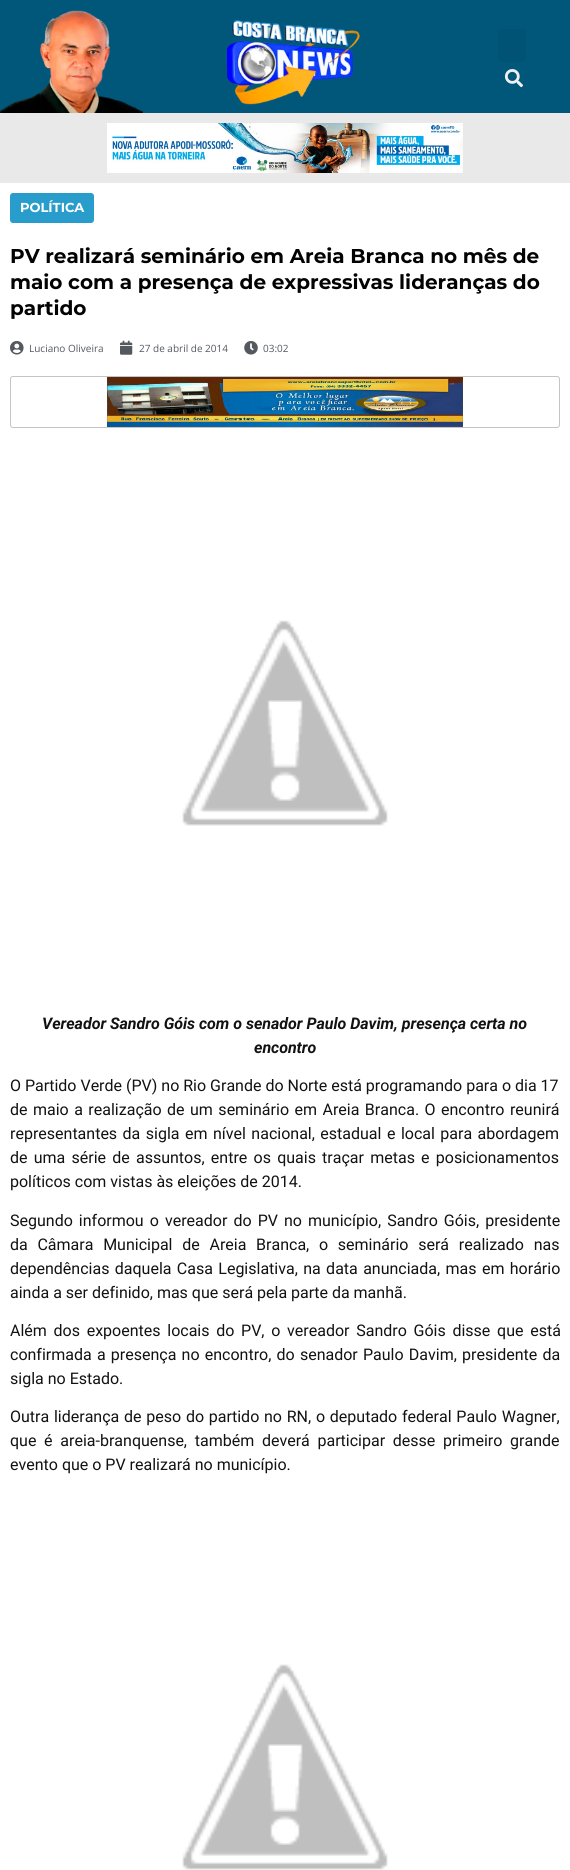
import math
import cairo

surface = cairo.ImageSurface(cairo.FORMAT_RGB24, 570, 1870)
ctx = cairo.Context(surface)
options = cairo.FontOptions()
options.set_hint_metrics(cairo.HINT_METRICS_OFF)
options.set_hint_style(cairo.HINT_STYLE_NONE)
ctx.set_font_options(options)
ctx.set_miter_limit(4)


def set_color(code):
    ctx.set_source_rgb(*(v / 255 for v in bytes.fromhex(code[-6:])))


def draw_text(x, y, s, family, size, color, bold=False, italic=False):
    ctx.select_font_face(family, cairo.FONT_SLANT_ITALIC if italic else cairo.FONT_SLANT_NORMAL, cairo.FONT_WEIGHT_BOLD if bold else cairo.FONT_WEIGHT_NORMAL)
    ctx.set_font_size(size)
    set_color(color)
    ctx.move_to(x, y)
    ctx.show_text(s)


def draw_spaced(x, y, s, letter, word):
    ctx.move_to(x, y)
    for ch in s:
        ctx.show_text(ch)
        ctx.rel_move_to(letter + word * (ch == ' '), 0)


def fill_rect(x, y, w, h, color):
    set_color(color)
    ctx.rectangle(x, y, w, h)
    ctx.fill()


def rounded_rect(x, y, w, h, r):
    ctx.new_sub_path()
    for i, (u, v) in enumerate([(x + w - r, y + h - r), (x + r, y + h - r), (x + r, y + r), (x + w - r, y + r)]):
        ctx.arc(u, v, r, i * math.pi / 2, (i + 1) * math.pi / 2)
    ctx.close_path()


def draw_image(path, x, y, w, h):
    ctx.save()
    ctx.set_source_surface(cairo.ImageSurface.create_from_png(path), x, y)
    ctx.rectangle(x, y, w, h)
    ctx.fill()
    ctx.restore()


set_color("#ffffff")
ctx.paint()
fill_rect(0, 0, 570, 113, "#00577a")
draw_image("assets/img1.png", 0, 10, 143, 103)
draw_image("assets/img2.png", 226, 20, 134, 85)
set_color("#005374")
rounded_rect(498, 29, 28, 33, 3)
ctx.fill()
draw_image("assets/img3.png", 504, 69, 19, 19)
fill_rect(0, 113, 570, 70, "#e9e9e9")
draw_image("assets/img4.png", 107, 123, 356, 50)
set_color("#289dcc")
rounded_rect(10, 193, 84, 30, 3)
ctx.fill()
draw_text(20, 212, "POLÍTICA", "Montserrat", 13, "#ffffff", bold=True)
draw_text(10, 263, "PV realizará seminário em Areia Branca no mês de", "Montserrat", 20, "#020202", bold=True)
draw_text(10, 289, "maio com a presença de expressivas lideranças do", "Montserrat", 20, "#020202", bold=True)
draw_text(10, 315, "partido", "Montserrat", 20, "#020202", bold=True)
draw_image("assets/img5.png", 10, 341, 14, 14)
draw_text(29, 352, "Luciano Oliveira", "Open Sans", 10, "#54595f")
draw_image("assets/img6.png", 120, 340, 13, 15)
draw_text(139, 352, "27 de abril de 2014", "Open Sans", 10, "#54595f")
draw_image("assets/img7.png", 244, 341, 14, 14)
draw_text(263, 352, "03:02", "Open Sans", 10, "#54595f")
rounded_rect(10.5, 376.5, 549, 51, 2.5)
set_color("#c4c4c4")
ctx.set_line_width(1)
ctx.stroke()
draw_image("assets/img8.png", 107, 377, 356, 50)
draw_image("assets/img9.png", 182, 620, 206, 206)
draw_text(42, 1029, "Vereador Sandro Góis com o senador Paulo Davim, presença certa no", "Roboto", 16, "#121212", bold=True, italic=True)
draw_text(254, 1053, "encontro", "Roboto", 16, "#121212", bold=True, italic=True)
draw_text(10, 1091, "O Partido Verde (PV) no Rio Grande do Norte está programando para o dia 17", "Roboto", 16, "#121212")
draw_spaced(10, 1115, "de maio a realização de um seminário em Areia Branca. O encontro reunirá", 0, 1.5)
draw_spaced(10, 1139, "representantes da sigla em nível nacional, estadual e local para abordagem", 0, 1.5)
draw_spaced(10, 1163, "de uma série de assuntos, entre os quais traçar metas e posicionamentos", 0, 2.25)
draw_text(10, 1187, "políticos com vistas às eleições de 2014.", "Roboto", 16, "#121212")
draw_spaced(10, 1226, "Segundo informou o vereador do PV no município, Sandro Góis, presidente", 0, 2.1)
draw_spaced(10, 1250, "da Câmara Municipal de Areia Branca, o seminário será realizado nas", 0, 5.75)
draw_spaced(10, 1274, "dependências daquela Casa Legislativa, na data anunciada, mas em horário", 0, 1.4)
draw_text(10, 1298, "ainda a ser definido, mas que será pela parte da manhã.", "Roboto", 16, "#121212")
draw_spaced(10, 1336, "Além dos expoentes locais do PV, o vereador Sandro Góis disse que está", 0, 2.75)
draw_spaced(10, 1360, "confirmada a presença no encontro, do senador Paulo Davim, presidente da", 0, 1.25)
draw_text(10, 1384, "sigla no Estado.", "Roboto", 16, "#121212")
draw_spaced(10, 1422, "Outra liderança de peso do partido no RN, o deputado federal Paulo Wagner,", 0, 0.8)
draw_spaced(10, 1446, "que é areia-branquense, também deverá participar desse primeiro grande", 0, 3.75)
draw_text(10, 1470, "evento que o PV realizará no município.", "Roboto", 16, "#121212")
draw_image("assets/img9.png", 182, 1664, 206, 206)
surface.write_to_png("output.png")
